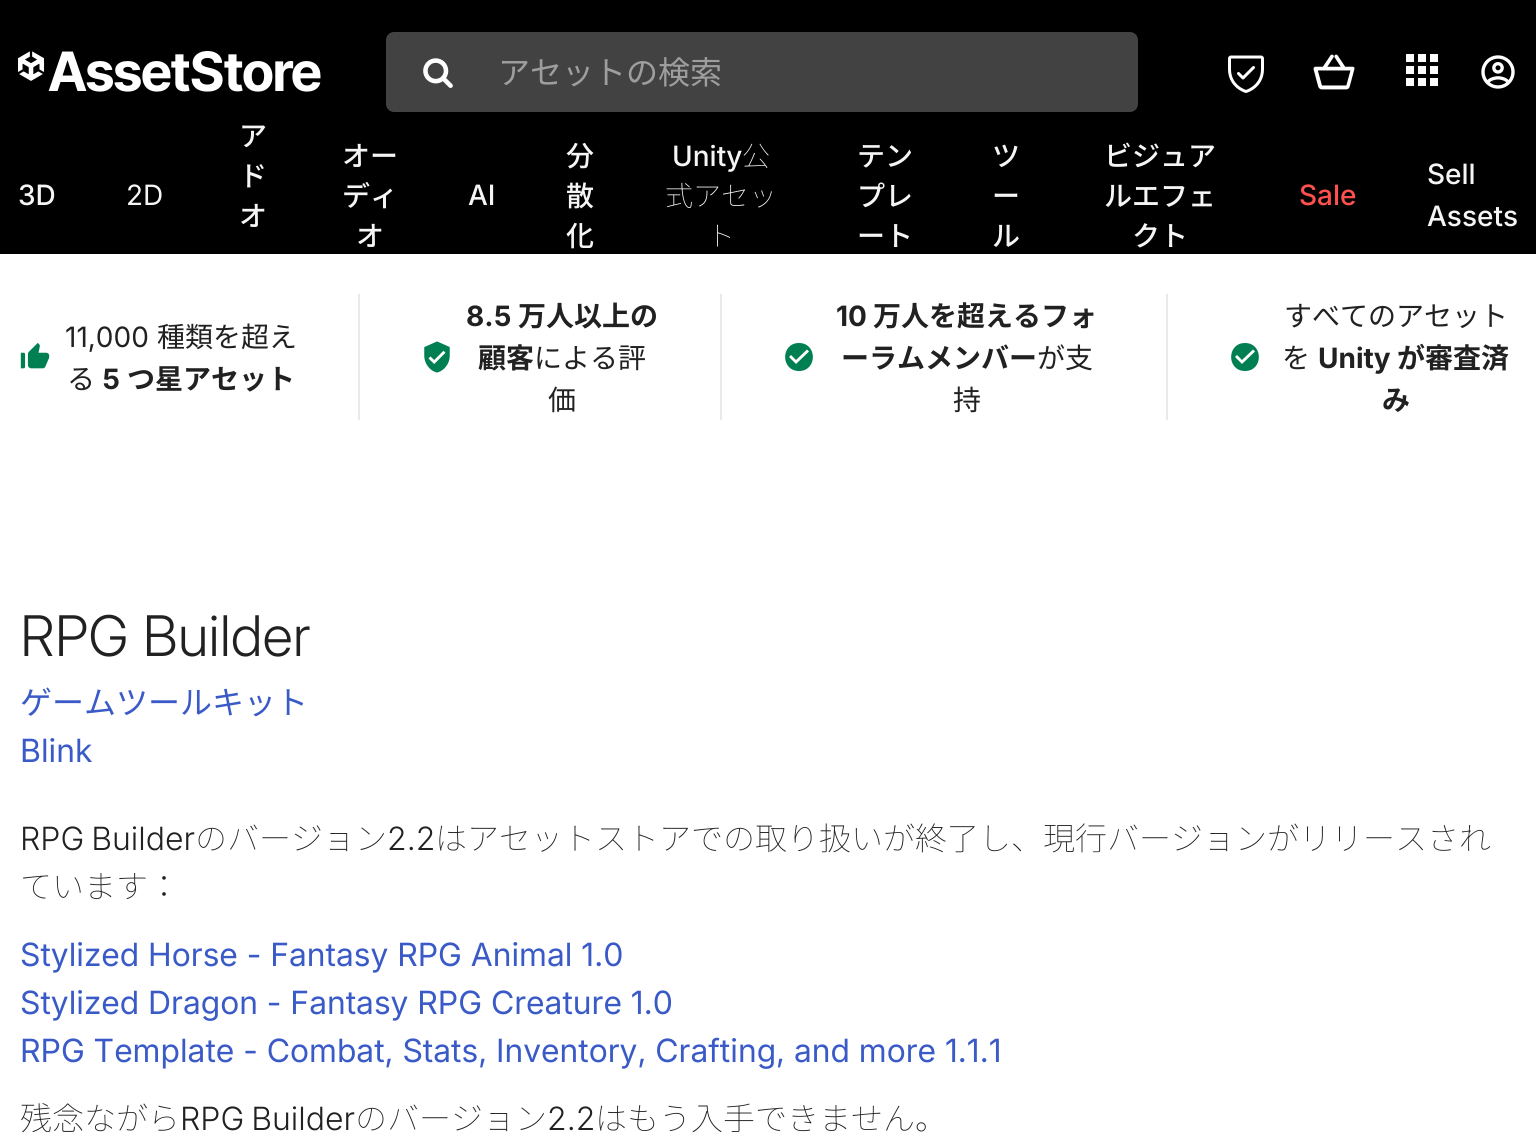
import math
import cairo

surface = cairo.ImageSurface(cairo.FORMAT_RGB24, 1536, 1132)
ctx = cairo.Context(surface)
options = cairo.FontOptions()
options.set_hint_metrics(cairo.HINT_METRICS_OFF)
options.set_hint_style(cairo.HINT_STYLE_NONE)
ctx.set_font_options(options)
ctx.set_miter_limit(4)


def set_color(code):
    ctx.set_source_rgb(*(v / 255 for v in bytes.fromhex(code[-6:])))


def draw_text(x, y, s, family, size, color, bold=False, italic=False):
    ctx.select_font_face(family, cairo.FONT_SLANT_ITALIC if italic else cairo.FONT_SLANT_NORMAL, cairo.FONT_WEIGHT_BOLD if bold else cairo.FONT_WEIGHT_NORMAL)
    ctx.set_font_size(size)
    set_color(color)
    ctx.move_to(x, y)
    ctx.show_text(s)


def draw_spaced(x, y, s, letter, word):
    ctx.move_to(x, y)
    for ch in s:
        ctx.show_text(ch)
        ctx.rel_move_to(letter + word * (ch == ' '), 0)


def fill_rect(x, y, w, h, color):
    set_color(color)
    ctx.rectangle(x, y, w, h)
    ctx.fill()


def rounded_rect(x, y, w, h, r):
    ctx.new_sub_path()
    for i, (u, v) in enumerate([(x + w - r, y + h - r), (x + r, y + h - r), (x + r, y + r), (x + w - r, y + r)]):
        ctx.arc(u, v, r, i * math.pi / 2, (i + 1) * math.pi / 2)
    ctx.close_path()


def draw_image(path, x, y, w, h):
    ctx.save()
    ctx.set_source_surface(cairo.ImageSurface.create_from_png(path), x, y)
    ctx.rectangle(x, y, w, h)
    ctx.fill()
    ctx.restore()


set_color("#ffffff")
ctx.paint()
fill_rect(0, 0, 1536, 254, "#000000")
draw_image("assets/img1.png", 18, 51, 303, 41)
set_color("#424242")
rounded_rect(386, 32, 752, 80, 8)
ctx.fill()
draw_image("assets/img2.png", 423, 58, 30, 30)
draw_text(498, 84, "アセットの検索", "Noto Sans JP", 32, "#9e9e9e")
draw_image("assets/img3.png", 1228, 55, 36, 38)
draw_image("assets/img4.png", 1313, 54, 42, 36)
draw_image("assets/img5.png", 1406, 54, 32, 32)
draw_image("assets/img6.png", 1481, 55, 34, 34)
draw_text(18, 205, "3D", "Inter Medium", 28, "#f5f5f5")
draw_text(126, 205, "2D", "Inter", 28, "#f5f5f5")
draw_text(239, 146, "ア", "Noto Sans JP Medium", 28, "#f5f5f5")
draw_text(239, 186, "ド", "Noto Sans JP Medium", 28, "#f5f5f5")
draw_text(239, 226, "オ", "Noto Sans JP Medium", 28, "#f5f5f5")
draw_text(342, 166, "オー", "Noto Sans JP Medium", 28, "#f5f5f5")
draw_text(342, 206, "ディ", "Noto Sans JP Medium", 28, "#f5f5f5")
draw_text(356, 246, "オ", "Noto Sans JP Medium", 28, "#f5f5f5")
draw_text(468, 205, "AI", "Inter Medium", 28, "#f5f5f5")
draw_text(566, 166, "分", "Noto Sans JP Medium", 28, "#f5f5f5")
draw_text(566, 206, "散", "Noto Sans JP Medium", 28, "#f5f5f5")
draw_text(566, 246, "化", "Noto Sans JP Medium", 28, "#f5f5f5")
draw_text(672, 166, "Unity", "Inter Medium", 28, "#f5f5f5")
draw_text(742, 166, "公", "Noto Sans JP Thin", 28, "#f5f5f5")
draw_text(665, 206, "式アセッ", "Noto Sans JP Thin", 28, "#f5f5f5")
draw_text(707, 246, "ト", "Noto Sans JP Thin", 28, "#f5f5f5")
draw_text(857, 166, "テン", "Noto Sans JP Medium", 28, "#f5f5f5")
draw_text(857, 206, "プレ", "Noto Sans JP Medium", 28, "#f5f5f5")
draw_text(857, 246, "ート", "Noto Sans JP Medium", 28, "#f5f5f5")
draw_text(992, 166, "ツ", "Noto Sans JP Medium", 28, "#f5f5f5")
draw_text(992, 206, "ー", "Noto Sans JP Medium", 28, "#f5f5f5")
draw_text(992, 246, "ル", "Noto Sans JP Medium", 28, "#f5f5f5")
draw_text(1104, 166, "ビジュア", "Noto Sans JP Medium", 28, "#f5f5f5")
draw_text(1104, 206, "ルエフェ", "Noto Sans JP Medium", 28, "#f5f5f5")
draw_text(1132, 246, "クト", "Noto Sans JP Medium", 28, "#f5f5f5")
draw_text(1299, 205, "Sale", "Inter Medium", 28, "#ff5050")
draw_text(1427, 184, "Sell", "Inter Medium", 28, "#f5f5f5")
draw_text(1427, 226, "Assets", "Inter Medium", 28, "#f5f5f5")
draw_image("assets/img7.png", 20, 342, 30, 27)
draw_text(65, 347, "11,000", "Inter", 28, "#212121")
draw_text(157, 347, "種類を超え", "Noto Sans JP", 28, "#212121")
draw_text(67, 389, "る", "Noto Sans JP", 28, "#212121")
draw_text(102, 389, "5", "Inter", 28, "#212121", bold=True)
draw_text(127, 389, "つ星アセット", "Noto Sans JP", 28, "#212121", bold=True)
fill_rect(720, 294, 2, 126, "#e9e9e9")
fill_rect(358, 294, 2, 126, "#e9e9e9")
draw_image("assets/img8.png", 424, 341, 26, 32)
draw_text(466, 326, "8.5", "Inter", 28, "#212121", bold=True)
draw_text(518, 326, "万人以上の", "Noto Sans JP", 28, "#212121", bold=True)
draw_text(478, 368, "顧客", "Noto Sans JP", 28, "#212121", bold=True)
draw_text(534, 368, "による評", "Noto Sans JP", 28, "#212121")
draw_text(548, 410, "価", "Noto Sans JP", 28, "#212121")
fill_rect(1166, 294, 2, 126, "#e9e9e9")
set_color("#007f52")
ctx.new_path()
ctx.move_to(799, 343)
ctx.curve_to(780.5, 343, 780.5, 371, 799, 371)
ctx.curve_to(817.5, 371, 817.5, 343, 799, 343)
ctx.close_path()
ctx.move_to(796, 364)
ctx.line_to(789, 357)
ctx.line_to(791, 355)
ctx.line_to(796, 360)
ctx.line_to(807, 349.5)
ctx.line_to(809, 351.5)
ctx.close_path()
ctx.fill()
draw_text(836, 326, "10", "Inter", 28, "#212121", bold=True)
draw_text(873, 326, "万人を超えるフォ", "Noto Sans JP", 28, "#212121", bold=True)
draw_text(841, 368, "ーラムメンバー", "Noto Sans JP", 28, "#212121", bold=True)
draw_text(1037, 368, "が支", "Noto Sans JP", 28, "#212121")
draw_text(953, 410, "持", "Noto Sans JP", 28, "#212121")
set_color("#007f52")
ctx.new_path()
ctx.move_to(1245, 343)
ctx.curve_to(1226.5, 343, 1226.5, 371, 1245, 371)
ctx.curve_to(1263.5, 371, 1263.5, 343, 1245, 343)
ctx.close_path()
ctx.move_to(1242, 364)
ctx.line_to(1235, 357)
ctx.line_to(1237, 355)
ctx.line_to(1242, 360)
ctx.line_to(1253, 349.5)
ctx.line_to(1255, 351.5)
ctx.close_path()
ctx.fill()
draw_text(1284, 326, "すべてのアセット", "Noto Sans JP", 28, "#212121")
draw_text(1282, 368, "を", "Noto Sans JP", 28, "#212121")
draw_text(1318, 368, "Unity", "Inter", 28, "#212121", bold=True)
draw_text(1397, 368, "が審査済", "Noto Sans JP", 28, "#212121", bold=True)
draw_text(1382, 410, "み", "Noto Sans JP", 28, "#212121", bold=True)
draw_text(20, 656, "RPG Builder", "Inter Light", 56, "#212121")
draw_text(20, 714, "ゲームツールキット", "Noto Sans JP", 32, "#3a5bc7")
draw_text(20, 762, "Blink", "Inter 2", 32, "#3a5bc7")
ctx.select_font_face("Inter 2 Light")
set_color("#212121")
draw_spaced(20, 850, "RPG Builder", 0, -2)
draw_text(195, 850, "のバージョン", "Noto Sans JP Thin", 32, "#212121")
draw_text(387, 850, "2.2", "Inter 2 Light", 32, "#212121")
draw_text(435, 850, "はアセットストアでの取り扱いが終了し、現行バージョンがリリースされ", "Noto Sans JP Thin", 32, "#212121")
draw_text(20, 898, "ています：", "Noto Sans JP Thin", 32, "#212121")
draw_text(20, 966, "Stylized Horse - Fantasy RPG Animal 1.0", "Inter 2", 32, "#3a5bc7")
draw_text(20, 1014, "Stylized Dragon - Fantasy RPG Creature 1.0", "Inter 2", 32, "#3a5bc7")
draw_text(20, 1062, "RPG Template - Combat, Stats, Inventory, Crafting, and more 1.1.1", "Inter 2", 32, "#3a5bc7")
draw_text(20, 1130, "残念ながら", "Noto Sans JP Thin", 32, "#212121")
ctx.select_font_face("Inter 2 Light")
draw_spaced(180, 1130, "RPG Builder", 0, -2)
draw_text(355, 1130, "のバージョン", "Noto Sans JP Thin", 32, "#212121")
draw_text(547, 1130, "2.2", "Inter 2 Light", 32, "#212121")
draw_text(595, 1130, "はもう入手できません。", "Noto Sans JP Thin", 32, "#212121")
surface.write_to_png("output.png")
